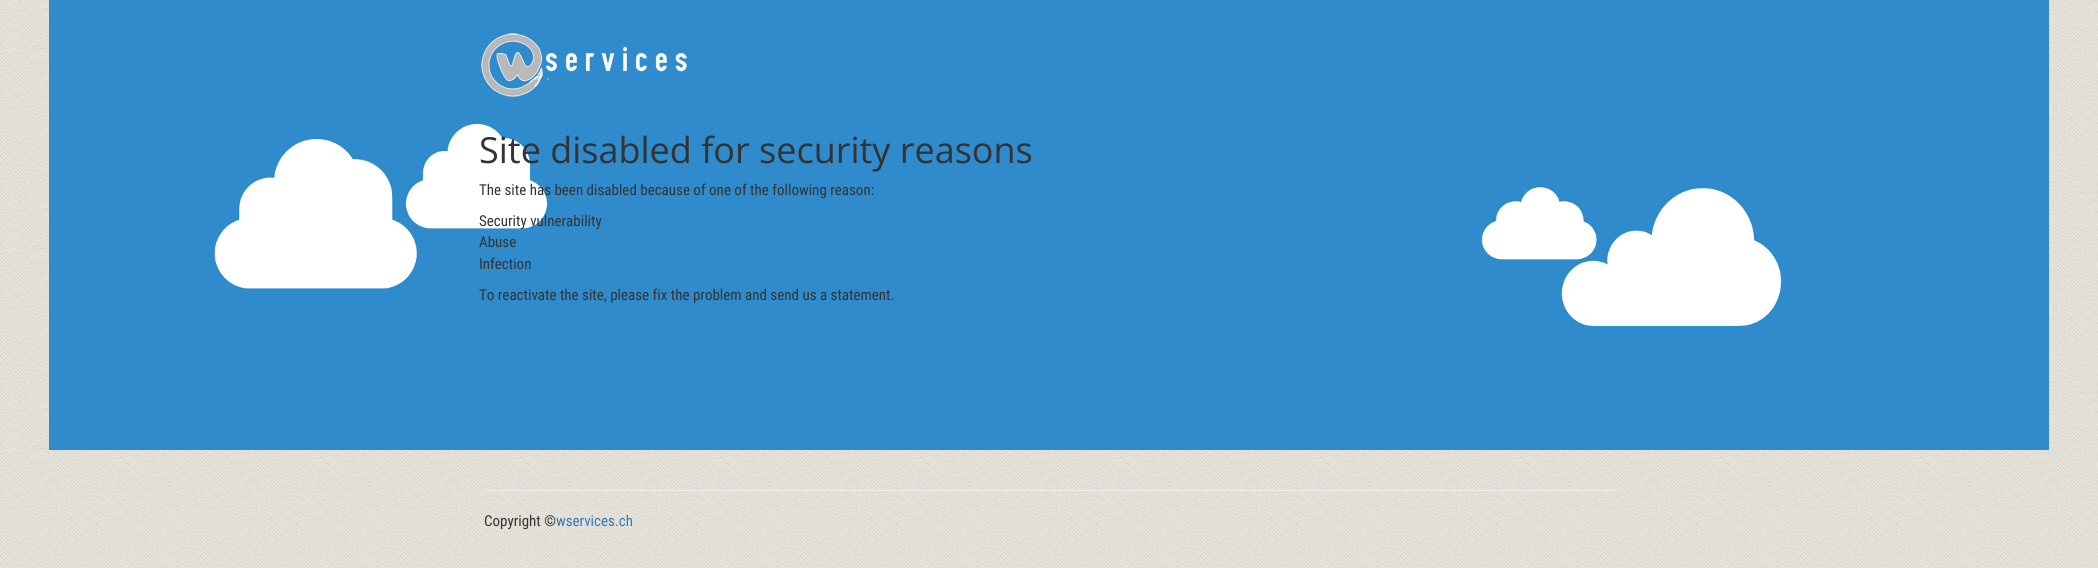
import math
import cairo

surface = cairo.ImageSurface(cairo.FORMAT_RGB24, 2098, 568)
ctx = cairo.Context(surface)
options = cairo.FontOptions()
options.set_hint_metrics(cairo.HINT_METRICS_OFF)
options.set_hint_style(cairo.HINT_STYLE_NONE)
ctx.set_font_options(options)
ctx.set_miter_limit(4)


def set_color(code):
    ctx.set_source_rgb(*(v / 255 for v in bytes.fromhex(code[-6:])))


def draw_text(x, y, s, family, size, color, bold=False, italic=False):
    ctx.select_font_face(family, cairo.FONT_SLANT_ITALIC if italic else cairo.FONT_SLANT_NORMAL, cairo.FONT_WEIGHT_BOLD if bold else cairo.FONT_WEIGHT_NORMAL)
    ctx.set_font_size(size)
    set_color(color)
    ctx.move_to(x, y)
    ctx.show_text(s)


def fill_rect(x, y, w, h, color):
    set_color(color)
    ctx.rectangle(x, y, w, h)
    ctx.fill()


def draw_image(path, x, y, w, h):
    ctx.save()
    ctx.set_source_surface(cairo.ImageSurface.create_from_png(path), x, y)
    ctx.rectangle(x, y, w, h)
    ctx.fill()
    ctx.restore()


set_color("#ffffff")
ctx.paint()
draw_image("assets/img1.png", 0, 0, 2098, 568)
draw_image("assets/img2.png", 49, 0, 2000, 450)
draw_image("assets/img3.png", 481, 33, 206, 64)
draw_text(479, 163, "Site disabled for security reasons", "Open Sans", 36, "#333333")
draw_text(479, 195, "The site has been disabled because of one of the following reason:", "Roboto Condensed", 15, "#333333")
draw_text(479, 226, "Security vulnerability", "Roboto Condensed", 15, "#333333")
draw_text(479, 247, "Abuse", "Roboto Condensed", 15, "#333333")
draw_text(479, 269, "Infection", "Roboto Condensed", 15, "#333333")
draw_text(479, 300, "To reactivate the site, please fix the problem and send us a statement.", "Roboto Condensed", 15, "#333333")
fill_rect(484, 490, 1130, 1, "#eeeeee")
draw_text(484, 526, "Copyright ©", "Roboto Condensed", 15, "#333333")
draw_text(556, 526, "wservices.ch", "Roboto Condensed", 15, "#337ab7")
surface.write_to_png("output.png")
